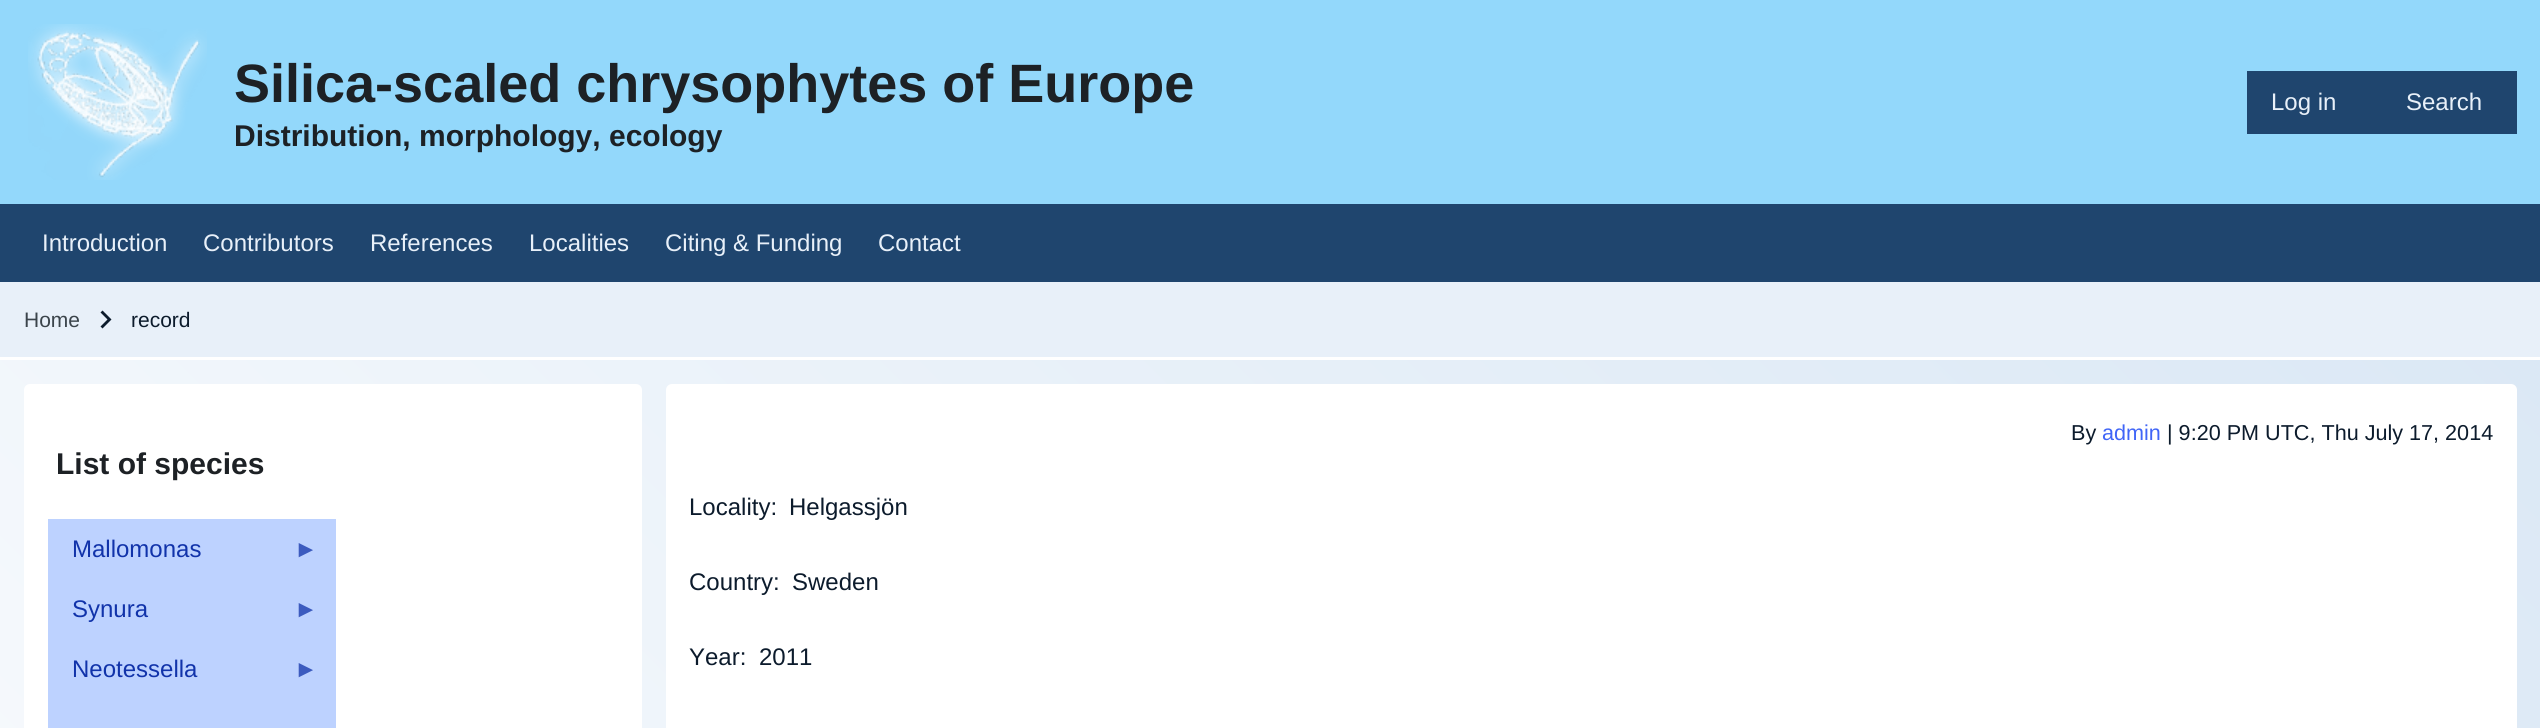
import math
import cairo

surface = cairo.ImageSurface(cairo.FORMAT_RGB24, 2540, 728)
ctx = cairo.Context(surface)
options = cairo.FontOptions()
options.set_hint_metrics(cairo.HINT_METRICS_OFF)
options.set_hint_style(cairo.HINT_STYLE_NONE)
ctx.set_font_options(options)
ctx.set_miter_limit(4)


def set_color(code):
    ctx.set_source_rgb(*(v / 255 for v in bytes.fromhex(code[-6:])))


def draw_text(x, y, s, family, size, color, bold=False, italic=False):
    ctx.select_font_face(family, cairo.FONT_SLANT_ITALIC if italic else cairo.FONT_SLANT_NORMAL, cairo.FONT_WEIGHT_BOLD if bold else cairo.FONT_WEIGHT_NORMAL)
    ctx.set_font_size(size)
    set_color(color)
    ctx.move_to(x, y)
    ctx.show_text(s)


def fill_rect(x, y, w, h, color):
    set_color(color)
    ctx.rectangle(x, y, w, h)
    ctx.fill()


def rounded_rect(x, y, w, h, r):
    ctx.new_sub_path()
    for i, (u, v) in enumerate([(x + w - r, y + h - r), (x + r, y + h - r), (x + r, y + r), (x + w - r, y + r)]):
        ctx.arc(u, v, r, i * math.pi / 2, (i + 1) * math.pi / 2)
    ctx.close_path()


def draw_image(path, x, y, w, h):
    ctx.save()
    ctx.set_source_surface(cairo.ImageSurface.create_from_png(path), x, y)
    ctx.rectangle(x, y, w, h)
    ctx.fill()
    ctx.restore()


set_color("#e8f0f9")
ctx.paint()
fill_rect(0, 0, 2540, 204, "#93d8fb")
draw_image("assets/img1.png", 28, 24, 179, 156)
draw_text(234, 102, "Silica-scaled chrysophytes of Europe", "Liberation Sans", 54, "#1d2125", bold=True)
draw_text(234, 146, "Distribution, morphology, ecology", "Liberation Sans", 30, "#1d2125", bold=True)
fill_rect(2247, 71, 270, 63, "#1f456e")
draw_text(2271, 110, "Log in", "Liberation Sans", 24, "#e8f0f9")
draw_text(2406, 110, "Search", "Liberation Sans", 24, "#e8f0f9")
fill_rect(0, 204, 2540, 78, "#1f456e")
draw_text(42, 251, "Introduction", "Liberation Sans", 24, "#e8f0f9")
draw_text(203, 251, "Contributors", "Liberation Sans", 24, "#e8f0f9")
draw_text(370, 251, "References", "Liberation Sans", 24, "#e8f0f9")
draw_text(529, 251, "Localities", "Liberation Sans", 24, "#e8f0f9")
draw_text(665, 251, "Citing & Funding", "Liberation Sans", 24, "#e8f0f9")
draw_text(878, 251, "Contact", "Liberation Sans", 24, "#e8f0f9")
fill_rect(0, 357, 2540, 3, "#ffffff")
draw_text(24, 327, "Home", "Liberation Sans", 21, "#3b444b")
set_color("#0c1b2c")
ctx.new_path()
ctx.move_to(107.5, 319.5)
ctx.line_to(100.5, 312.5)
ctx.line_to(102.5, 310.5)
ctx.line_to(111.5, 319.5)
ctx.line_to(102.5, 328.5)
ctx.line_to(100.5, 326.5)
ctx.close_path()
ctx.fill()
draw_text(131, 327, "record", "Liberation Sans", 21, "#0c1b2c")
gradient = cairo.LinearGradient(262, 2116, 2279, 98)
gradient.add_color_stop_rgba(0, 1, 1, 1, 1)
gradient.add_color_stop_rgba(1, 0.859, 0.91, 0.961, 1)
ctx.set_source(gradient)
ctx.rectangle(0, 360, 2540, 368)
ctx.fill()
set_color("#ffffff")
rounded_rect(24, 384, 618, 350, 6)
ctx.fill()
draw_text(56, 474, "List of species", "Liberation Sans", 30, "#1d2125", bold=True)
fill_rect(48, 519, 288, 209, "#bdd2ff")
draw_text(72, 557, "Mallomonas", "Liberation Sans", 24, "#1133aa")
draw_text(294, 557, "►", "Liberation Sans", 24, "#3c5bbf")
draw_text(72, 617, "Synura", "Liberation Sans", 24, "#1133aa")
draw_text(294, 617, "►", "Liberation Sans", 24, "#3c5bbf")
draw_text(72, 677, "Neotessella", "Liberation Sans", 24, "#1133aa")
draw_text(294, 677, "►", "Liberation Sans", 24, "#3c5bbf")
set_color("#ffffff")
rounded_rect(666, 384, 1851, 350, 6)
ctx.fill()
draw_text(2071, 440, "By", "Liberation Sans", 21.6, "#0c1b2c")
draw_text(2102, 440, "admin", "Liberation Sans", 21.6, "#4065f7")
draw_text(2167, 440, "| 9:20 PM UTC, Thu July 17, 2014", "Liberation Sans", 21.6, "#0c1b2c")
draw_text(689, 515, "Locality:", "Liberation Sans", 24, "#0c1b2c")
draw_text(789, 515, "Helgassjön", "Liberation Sans", 24, "#0c1b2c")
draw_text(689, 590, "Country:", "Liberation Sans", 24, "#0c1b2c")
draw_text(792, 590, "Sweden", "Liberation Sans", 24, "#0c1b2c")
draw_text(689, 665, "Year:", "Liberation Sans", 24, "#0c1b2c")
draw_text(759, 665, "2011", "Liberation Sans", 24, "#0c1b2c")
surface.write_to_png("output.png")
